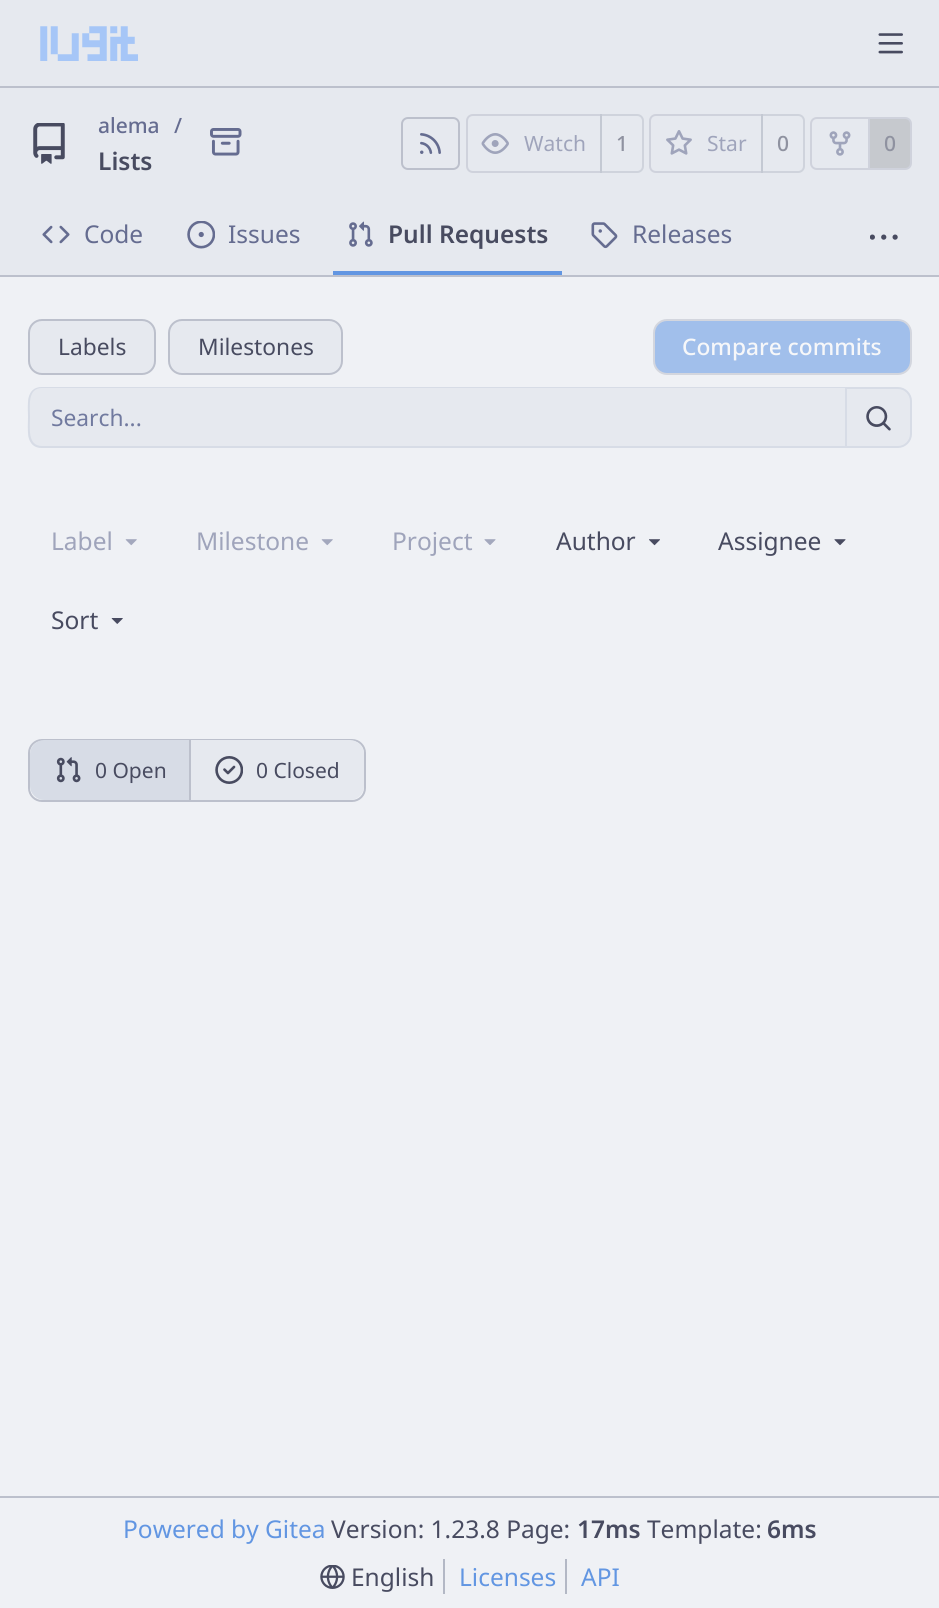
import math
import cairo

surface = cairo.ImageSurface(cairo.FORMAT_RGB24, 939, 1608)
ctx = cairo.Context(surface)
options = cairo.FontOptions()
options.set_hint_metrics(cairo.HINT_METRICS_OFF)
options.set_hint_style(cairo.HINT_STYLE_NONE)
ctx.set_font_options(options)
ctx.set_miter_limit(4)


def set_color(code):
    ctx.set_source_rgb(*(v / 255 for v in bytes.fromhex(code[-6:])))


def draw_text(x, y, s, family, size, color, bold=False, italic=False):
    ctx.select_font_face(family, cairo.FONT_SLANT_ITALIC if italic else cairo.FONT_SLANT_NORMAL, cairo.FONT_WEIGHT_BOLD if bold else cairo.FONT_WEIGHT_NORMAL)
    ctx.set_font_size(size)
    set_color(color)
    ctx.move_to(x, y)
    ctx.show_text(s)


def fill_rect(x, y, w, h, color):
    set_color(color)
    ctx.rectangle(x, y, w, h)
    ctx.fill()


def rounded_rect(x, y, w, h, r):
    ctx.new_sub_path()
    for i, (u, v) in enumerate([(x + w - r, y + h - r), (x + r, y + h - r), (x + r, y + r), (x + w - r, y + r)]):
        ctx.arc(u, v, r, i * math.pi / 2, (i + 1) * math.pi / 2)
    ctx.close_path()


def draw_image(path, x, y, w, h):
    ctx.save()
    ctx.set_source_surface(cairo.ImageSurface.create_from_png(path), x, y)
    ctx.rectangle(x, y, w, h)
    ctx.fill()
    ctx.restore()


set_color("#eff1f5")
ctx.paint()
fill_rect(0, 0, 939, 86, "#e6e9ef")
fill_rect(0, 86, 939, 2, "#bcc0cc")
draw_image("assets/img1.png", 40, 26, 98, 35)
draw_image("assets/img2.png", 878, 33, 25, 21)
fill_rect(0, 88, 939, 187, "#e6e9ef")
draw_image("assets/img3.png", 33, 123, 32, 41)
draw_text(98, 133, "alema", "Noto Sans Medium", 21, "#656c90")
draw_text(174, 133, "/", "Noto Sans Medium", 21, "#656c90")
draw_text(98, 170, "Lists", "Noto Sans SemiBold", 24.5, "#484b60")
draw_image("assets/img4.png", 210, 128, 32, 28)
rounded_rect(402, 118, 57, 51, 6)
set_color("#bcc0cc")
ctx.stroke()
draw_image("assets/img5.png", 420, 133, 21, 21)
ctx.new_path()
ctx.move_to(473, 115)
ctx.line_to(601, 115)
ctx.line_to(601, 172)
ctx.line_to(473, 172)
ctx.curve_to(469.5, 172, 467, 169.5, 467, 166)
ctx.line_to(467, 121)
ctx.curve_to(467, 117.5, 469.5, 115, 473, 115)
ctx.close_path()
set_color("#cfd2dc")
ctx.stroke()
draw_image("assets/img6.png", 481, 133, 28, 21)
draw_text(524, 151, "Watch", "Noto Sans", 21, "#9fa4bb")
ctx.new_path()
ctx.move_to(601, 115)
ctx.line_to(637, 115)
ctx.curve_to(640.5, 115, 643, 117.5, 643, 121)
ctx.line_to(643, 166)
ctx.curve_to(643, 169.5, 640.5, 172, 637, 172)
ctx.line_to(601, 172)
ctx.close_path()
ctx.set_source_rgba(0.737, 0.753, 0.8, 0.55)
ctx.stroke()
draw_text(616, 151, "1", "Noto Sans Medium", 21, "#8f92a0")
ctx.new_path()
ctx.move_to(656, 115)
ctx.line_to(762, 115)
ctx.line_to(762, 172)
ctx.line_to(656, 172)
ctx.curve_to(652.5, 172, 650, 169.5, 650, 166)
ctx.line_to(650, 121)
ctx.curve_to(650, 117.5, 652.5, 115, 656, 115)
ctx.close_path()
set_color("#cfd2dc")
ctx.stroke()
draw_image("assets/img7.png", 666, 130, 26, 25)
draw_text(707, 151, "Star", "Noto Sans", 21, "#9fa4bb")
ctx.new_path()
ctx.move_to(762, 115)
ctx.line_to(798, 115)
ctx.curve_to(801.5, 115, 804, 117.5, 804, 121)
ctx.line_to(804, 166)
ctx.curve_to(804, 169.5, 801.5, 172, 798, 172)
ctx.line_to(762, 172)
ctx.close_path()
ctx.set_source_rgba(0.737, 0.753, 0.8, 0.55)
ctx.stroke()
draw_text(777, 151, "0", "Noto Sans Medium", 21, "#8f92a0")
ctx.new_path()
ctx.move_to(817, 118)
ctx.line_to(869, 118)
ctx.line_to(869, 169)
ctx.line_to(817, 169)
ctx.curve_to(813.5, 169, 811, 166.5, 811, 163)
ctx.line_to(811, 124)
ctx.curve_to(811, 120.5, 813.5, 118, 817, 118)
ctx.close_path()
set_color("#cfd2dc")
ctx.stroke()
draw_image("assets/img8.png", 829, 131, 22, 25)
ctx.set_source_rgba(0.408, 0.412, 0.424, 0.25)
ctx.new_path()
ctx.move_to(869, 118)
ctx.line_to(905, 118)
ctx.curve_to(908.5, 118, 911, 120.5, 911, 124)
ctx.line_to(911, 163)
ctx.curve_to(911, 166.5, 908.5, 169, 905, 169)
ctx.line_to(869, 169)
ctx.close_path()
ctx.fill_preserve()
set_color("#cfd2dc")
ctx.stroke()
draw_text(884, 151, "0", "Noto Sans Medium", 21, "#8f92a0")
draw_image("assets/img9.png", 42, 225, 28, 19)
draw_text(84, 243, "Code", "Noto Sans", 24.5, "#656c90")
draw_image("assets/img10.png", 187, 221, 28, 28)
draw_text(228, 243, "Issues", "Noto Sans", 24.5, "#656c90")
draw_image("assets/img11.png", 349, 221, 24, 26)
draw_text(388, 243, "Pull Requests", "Noto Sans SemiBold", 24.5, "#484b60")
fill_rect(333, 271, 229, 4, "#6296e2")
draw_image("assets/img12.png", 591, 222, 27, 27)
draw_text(632, 243, "Releases", "Noto Sans", 24.5, "#656c90")
draw_image("assets/img13.png", 870, 234, 28, 6)
fill_rect(0, 275, 939, 2, "#bcc0cc")
set_color("#e6e9ef")
rounded_rect(29, 320, 126, 54, 13)
ctx.fill_preserve()
set_color("#bcc0cc")
ctx.stroke()
draw_text(58, 355, "Labels", "Noto Sans", 22.75, "#484b60")
set_color("#e6e9ef")
rounded_rect(169, 320, 173, 54, 13)
ctx.fill_preserve()
set_color("#bcc0cc")
ctx.stroke()
draw_text(198, 355, "Milestones", "Noto Sans", 22.75, "#484b60")
set_color("#a1bfeb")
rounded_rect(654, 320, 257, 54, 13)
ctx.fill_preserve()
set_color("#d3d6de")
ctx.stroke()
draw_text(682, 355, "Compare commits", "Noto Sans Medium", 22.75, "#f6f7f9")
set_color("#e6e9ef")
ctx.new_path()
ctx.move_to(42, 387)
ctx.line_to(845, 387)
ctx.line_to(845, 448)
ctx.line_to(42, 448)
ctx.curve_to(34.5, 448, 28, 441.5, 28, 434)
ctx.line_to(28, 401)
ctx.curve_to(28, 393.5, 34.5, 387, 42, 387)
ctx.close_path()
ctx.fill()
set_color("#d7dce6")
ctx.set_fill_rule(cairo.FILL_RULE_EVEN_ODD)
ctx.new_path()
ctx.move_to(42, 387)
ctx.line_to(845, 387)
ctx.line_to(845, 448)
ctx.line_to(42, 448)
ctx.curve_to(25, 448, 28, 429, 28, 417)
ctx.curve_to(28, 406, 25, 387, 42, 387)
ctx.close_path()
ctx.move_to(42, 388)
ctx.line_to(845, 388)
ctx.line_to(845, 446)
ctx.line_to(42, 446)
ctx.curve_to(27, 446, 30, 427, 30, 417)
ctx.curve_to(30, 407, 27, 388, 42, 388)
ctx.close_path()
ctx.fill()
draw_text(51, 426, "Search...", "Noto Sans", 22.75, "#717a9f")
set_color("#e6e9ef")
ctx.new_path()
ctx.move_to(846, 388)
ctx.line_to(898, 388)
ctx.curve_to(905, 388, 911, 394, 911, 401)
ctx.line_to(911, 434)
ctx.curve_to(911, 441, 905, 447, 898, 447)
ctx.line_to(846, 447)
ctx.close_path()
ctx.fill_preserve()
set_color("#d7dce6")
ctx.stroke()
draw_image("assets/img14.png", 866, 406, 25, 25)
draw_text(51, 550, "Label", "Noto Sans", 24.5, "#9fa4bb")
draw_image("assets/img15.png", 125, 539, 12, 7)
draw_text(196, 550, "Milestone", "Noto Sans", 24.5, "#9fa4bb")
draw_image("assets/img15.png", 321, 539, 12, 7)
draw_text(392, 550, "Project", "Noto Sans", 24.5, "#9fa4bb")
draw_image("assets/img16.png", 484, 539, 12, 6)
draw_text(556, 550, "Author", "Noto Sans", 24.5, "#484b60")
draw_image("assets/img17.png", 649, 539, 11, 7)
draw_text(718, 550, "Assignee", "Noto Sans", 24.5, "#484b60")
draw_image("assets/img18.png", 834, 539, 12, 7)
draw_text(51, 629, "Sort", "Noto Sans", 24.5, "#484b60")
draw_image("assets/img19.png", 111, 618, 12, 6)
rounded_rect(29, 740, 336, 61, 13)
set_color("#bcc0cc")
ctx.stroke()
set_color("#d7dce6")
ctx.new_path()
ctx.move_to(44, 740)
ctx.line_to(191, 740)
ctx.line_to(191, 800)
ctx.line_to(44, 800)
ctx.curve_to(36.5, 800, 30, 793.5, 30, 786)
ctx.line_to(30, 754)
ctx.curve_to(30, 746.5, 36.5, 740, 44, 740)
ctx.close_path()
ctx.fill()
draw_image("assets/img20.png", 56, 757, 25, 26)
draw_text(95, 778, "0 Open", "Noto Sans", 21, "#484b60")
fill_rect(189, 740, 2, 60, "#bcc0cc")
set_color("#e6e9ef")
ctx.new_path()
ctx.move_to(191, 740)
ctx.line_to(350, 740)
ctx.curve_to(357.5, 740, 364, 746.5, 364, 754)
ctx.line_to(364, 786)
ctx.curve_to(364, 793.5, 357.5, 800, 350, 800)
ctx.line_to(191, 800)
ctx.close_path()
ctx.fill()
draw_image("assets/img21.png", 215, 756, 28, 28)
draw_text(256, 778, "0 Closed", "Noto Sans", 21, "#484b60")
fill_rect(0, 1496, 939, 2, "#bcc0cc")
draw_text(123, 1538, "Powered by Gitea", "Noto Sans", 24.5, "#6296e2")
draw_text(331, 1538, "Version: 1.23.8 Page:", "Noto Sans", 24.5, "#484b60")
draw_text(577, 1538, "17ms", "Noto Sans SemiBold", 24.5, "#484b60")
draw_text(647, 1538, "Template:", "Noto Sans", 24.5, "#484b60")
draw_text(767, 1538, "6ms", "Noto Sans SemiBold", 24.5, "#484b60")
draw_image("assets/img22.png", 320, 1565, 25, 24)
draw_text(351, 1586, "English", "Noto Sans", 24.5, "#484b60")
fill_rect(443, 1559, 2, 35, "#b3b8c5")
draw_text(459, 1586, "Licenses", "Noto Sans", 24.5, "#6296e2")
fill_rect(565, 1559, 2, 35, "#b3b8c5")
draw_text(581, 1586, "API", "Noto Sans", 24.5, "#6296e2")
surface.write_to_png("output.png")
